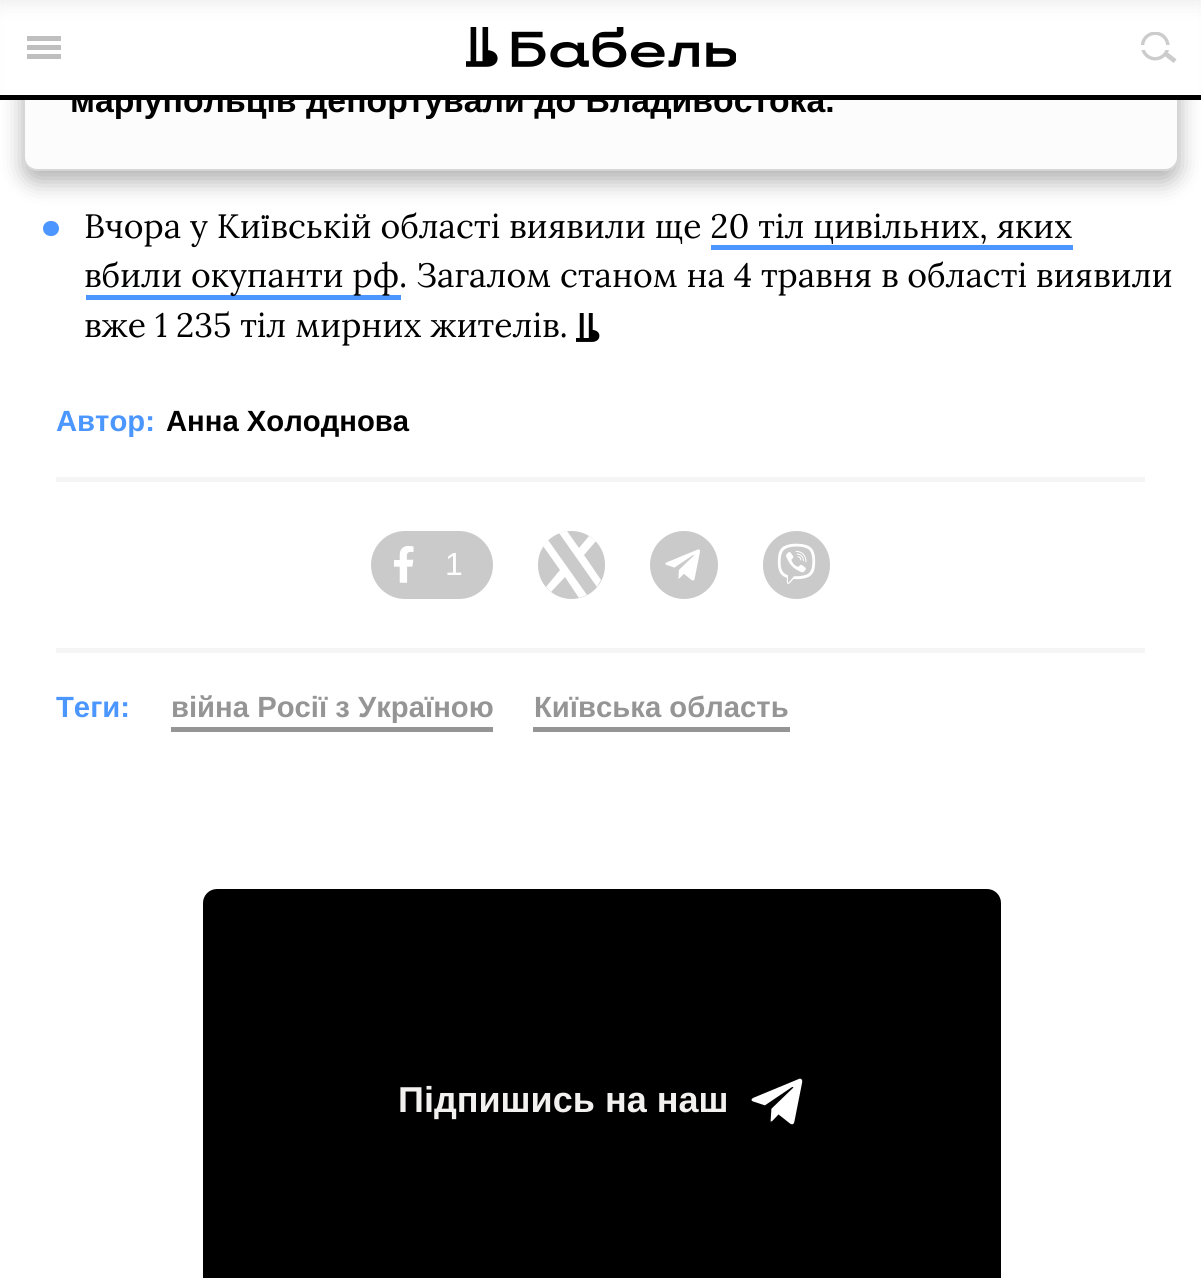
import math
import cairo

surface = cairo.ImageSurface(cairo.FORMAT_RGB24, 1201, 1278)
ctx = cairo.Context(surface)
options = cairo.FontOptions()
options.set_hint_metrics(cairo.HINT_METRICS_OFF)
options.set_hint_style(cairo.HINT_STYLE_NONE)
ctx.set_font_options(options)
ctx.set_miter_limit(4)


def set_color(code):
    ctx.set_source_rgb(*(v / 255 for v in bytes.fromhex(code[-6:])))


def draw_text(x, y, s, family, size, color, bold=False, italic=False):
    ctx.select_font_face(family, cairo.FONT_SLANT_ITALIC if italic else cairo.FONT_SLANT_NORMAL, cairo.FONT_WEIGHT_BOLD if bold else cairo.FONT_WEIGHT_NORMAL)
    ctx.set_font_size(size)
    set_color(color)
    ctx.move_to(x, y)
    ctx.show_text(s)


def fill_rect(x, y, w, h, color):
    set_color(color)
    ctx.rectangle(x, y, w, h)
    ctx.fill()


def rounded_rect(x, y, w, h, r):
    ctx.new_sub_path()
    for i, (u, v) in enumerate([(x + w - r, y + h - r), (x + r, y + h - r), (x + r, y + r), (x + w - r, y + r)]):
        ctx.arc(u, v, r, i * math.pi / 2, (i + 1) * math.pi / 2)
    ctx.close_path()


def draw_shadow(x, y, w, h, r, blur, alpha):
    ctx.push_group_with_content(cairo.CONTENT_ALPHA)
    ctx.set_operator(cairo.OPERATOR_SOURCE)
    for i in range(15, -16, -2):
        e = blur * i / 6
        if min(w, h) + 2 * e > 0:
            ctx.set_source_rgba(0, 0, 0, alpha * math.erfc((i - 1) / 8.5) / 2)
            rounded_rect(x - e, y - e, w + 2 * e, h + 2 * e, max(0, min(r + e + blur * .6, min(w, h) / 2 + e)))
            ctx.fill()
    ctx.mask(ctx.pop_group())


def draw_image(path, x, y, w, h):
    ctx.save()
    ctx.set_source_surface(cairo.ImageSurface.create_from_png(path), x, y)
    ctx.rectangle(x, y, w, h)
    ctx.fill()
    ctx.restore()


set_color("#ffffff")
ctx.paint()
set_color("#000000")
draw_shadow(23, -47, 1156, 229, 14, 11, 0.3)
set_color("#fcfcfc")
rounded_rect(23, -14, 1156, 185, 14)
ctx.fill()
rounded_rect(24, -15, 1154, 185, 13)
ctx.set_source_rgba(0, 0, 0, 0.15)
ctx.stroke()
draw_text(70, 112, "маріупольців депортували до Владивостока.", "Liberation Sans", 33.75, "#000000", bold=True)
fill_rect(3, 0, 1196, 95, "#ffffff")
set_color("#000000")
draw_shadow(0, -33, 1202, 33, 0, 11, 0.1)
fill_rect(27, 36, 34, 5, "#bfbfbf")
fill_rect(27, 54, 34, 5, "#bfbfbf")
fill_rect(27, 45, 34, 5, "#bfbfbf")
draw_image("assets/img1.png", 466, 27, 270, 41)
draw_image("assets/img2.png", 1141, 32, 36, 31)
fill_rect(1141, 45, 34, 5, "#ffffff")
fill_rect(0, 95, 1201, 5, "#000000")
set_color("#4b96ff")
rounded_rect(43, 221, 16, 15, 7.5)
ctx.fill()
draw_text(84, 238, "Вчора у Київській області виявили ще 20 тіл цивільних, яких", "Lora", 33.75, "#000000")
fill_rect(86, 295, 315, 5, "#4b96ff")
draw_text(84, 287, "вбили окупанти рф. Загалом станом на 4 травня в області виявили", "Lora", 33.75, "#000000")
fill_rect(711, 245, 362, 5, "#4b96ff")
draw_text(84, 337, "вже 1 235 тіл мирних жителів.", "Lora", 33.75, "#000000")
draw_image("assets/img3.png", 576, 313, 24, 29)
draw_text(56, 431, "Автор:", "Liberation Sans", 29.25, "#4b96ff", bold=True)
draw_text(166, 431, "Анна Холоднова", "Liberation Sans", 29.25, "#000000", bold=True)
fill_rect(56, 477, 1089, 5, "#f5f5f5")
fill_rect(56, 648, 1089, 5, "#f5f5f5")
set_color("#cacaca")
rounded_rect(371, 531, 122, 68, 34)
ctx.fill()
draw_image("assets/img4.png", 394, 546, 20, 37)
draw_text(445, 575, "1", "Liberation Sans", 32, "#ffffff")
set_color("#cacaca")
rounded_rect(538, 531, 67, 68, 33.5)
ctx.fill()
set_color("#ffffff")
ctx.set_fill_rule(cairo.FILL_RULE_EVEN_ODD)
ctx.new_path()
ctx.move_to(584, 555)
ctx.line_to(601, 580)
ctx.line_to(597, 587)
ctx.line_to(559, 533)
ctx.line_to(567, 531)
ctx.line_to(579, 548)
ctx.line_to(589, 536)
ctx.line_to(596, 541)
ctx.close_path()
ctx.move_to(570, 571)
ctx.line_to(587, 595)
ctx.line_to(579, 598)
ctx.line_to(565, 577)
ctx.line_to(551, 592)
ctx.line_to(546, 587)
ctx.line_to(560, 570)
ctx.line_to(543, 546)
ctx.line_to(548, 540)
ctx.close_path()
ctx.fill()
set_color("#cacaca")
ctx.arc(684, 565, 34, 0, 2 * math.pi)
ctx.fill()
draw_image("assets/img5.png", 665, 549, 35, 32)
rounded_rect(763, 531, 67, 68, 33.5)
ctx.fill()
draw_image("assets/img6.png", 777, 543, 39, 41)
draw_text(56, 717, "Теги:", "Liberation Sans", 29.25, "#4b96ff", bold=True)
draw_text(171, 717, "війна Росії з Україною", "Liberation Sans", 29.25, "#959595", bold=True)
fill_rect(171, 727, 322, 5, "#959595")
draw_text(534, 717, "Київська область", "Liberation Sans", 29.25, "#959595", bold=True)
fill_rect(533, 727, 257, 5, "#959595")
set_color("#000000")
rounded_rect(205.5, 891.5, 793, 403, 11.5)
ctx.fill_preserve()
ctx.set_line_width(5)
ctx.stroke()
draw_text(398, 1112, "Підпишись на наш", "Liberation Sans", 36, "#f2f1f0", bold=True)
draw_image("assets/img7.png", 751, 1078, 52, 47)
surface.write_to_png("output.png")
